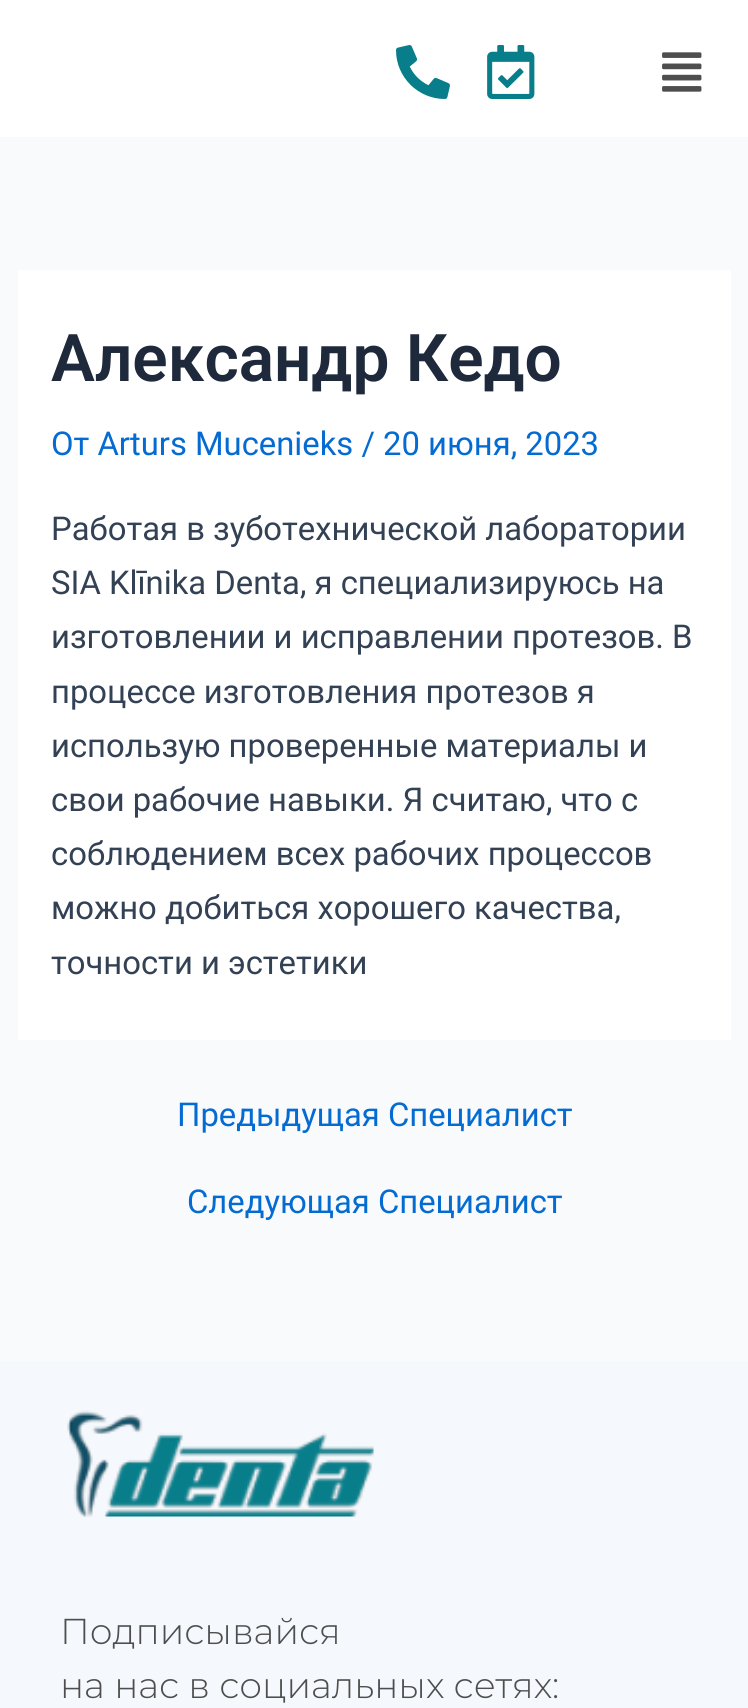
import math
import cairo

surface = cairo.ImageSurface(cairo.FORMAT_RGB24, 748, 1708)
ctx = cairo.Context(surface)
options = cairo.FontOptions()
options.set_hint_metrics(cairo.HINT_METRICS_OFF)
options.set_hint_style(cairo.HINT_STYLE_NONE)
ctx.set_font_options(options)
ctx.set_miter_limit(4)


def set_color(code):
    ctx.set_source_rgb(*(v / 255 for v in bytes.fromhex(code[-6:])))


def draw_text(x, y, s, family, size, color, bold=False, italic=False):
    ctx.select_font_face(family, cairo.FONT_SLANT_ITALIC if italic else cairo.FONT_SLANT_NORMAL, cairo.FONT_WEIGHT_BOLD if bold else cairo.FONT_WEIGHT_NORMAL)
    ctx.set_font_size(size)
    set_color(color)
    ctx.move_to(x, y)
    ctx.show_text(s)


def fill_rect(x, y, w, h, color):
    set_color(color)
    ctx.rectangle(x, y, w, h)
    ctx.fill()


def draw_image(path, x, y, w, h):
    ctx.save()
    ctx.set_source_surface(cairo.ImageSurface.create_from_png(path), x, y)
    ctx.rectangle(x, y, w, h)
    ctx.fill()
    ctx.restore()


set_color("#f9fafb")
ctx.paint()
fill_rect(0, 0, 748, 137, "#ffffff")
draw_image("assets/img1.png", 396, 45, 54, 54)
draw_image("assets/img2.png", 487, 45, 48, 54)
draw_image("assets/img3.png", 662, 52, 40, 40)
fill_rect(18, 270, 713, 770, "#ffffff")
draw_text(51, 381, "Александр Кедо", "Roboto SemiBold", 65.75, "#1e293b")
draw_text(51, 455, "От Arturs Mucenieks / 20 июня, 2023", "Roboto", 32.8, "#046bd2")
draw_text(51, 540, "Работая в зуботехнической лаборатории", "Roboto", 32.8, "#334155")
draw_text(51, 594, "SIA Klīnika Denta, я специализируюсь на", "Roboto", 32.8, "#334155")
draw_text(51, 648, "изготовлении и исправлении протезов. В", "Roboto", 32.8, "#334155")
draw_text(51, 703, "процессе изготовления протезов я", "Roboto", 32.8, "#334155")
draw_text(51, 757, "использую проверенные материалы и", "Roboto", 32.8, "#334155")
draw_text(51, 811, "свои рабочие навыки. Я считаю, что с", "Roboto", 32.8, "#334155")
draw_text(51, 865, "соблюдением всех рабочих процессов", "Roboto", 32.8, "#334155")
draw_text(51, 919, "можно добиться хорошего качества,", "Roboto", 32.8, "#334155")
draw_text(51, 974, "точности и эстетики", "Roboto", 32.8, "#334155")
draw_text(177, 1126, "Предыдущая Специалист", "Roboto", 32.8, "#046bd2")
draw_text(187, 1213, "Следующая Специалист", "Roboto", 32.8, "#046bd2")
fill_rect(0, 1361, 748, 347, "#f5f8fc")
draw_image("assets/img4.png", 67, 1410, 307, 107)
draw_text(60, 1644, "Подписывайся", "Montserrat Light", 36, "#4e4e4e")
draw_text(60, 1698, "на нас в социальных сетях:", "Montserrat Light", 36, "#4e4e4e")
surface.write_to_png("output.png")
